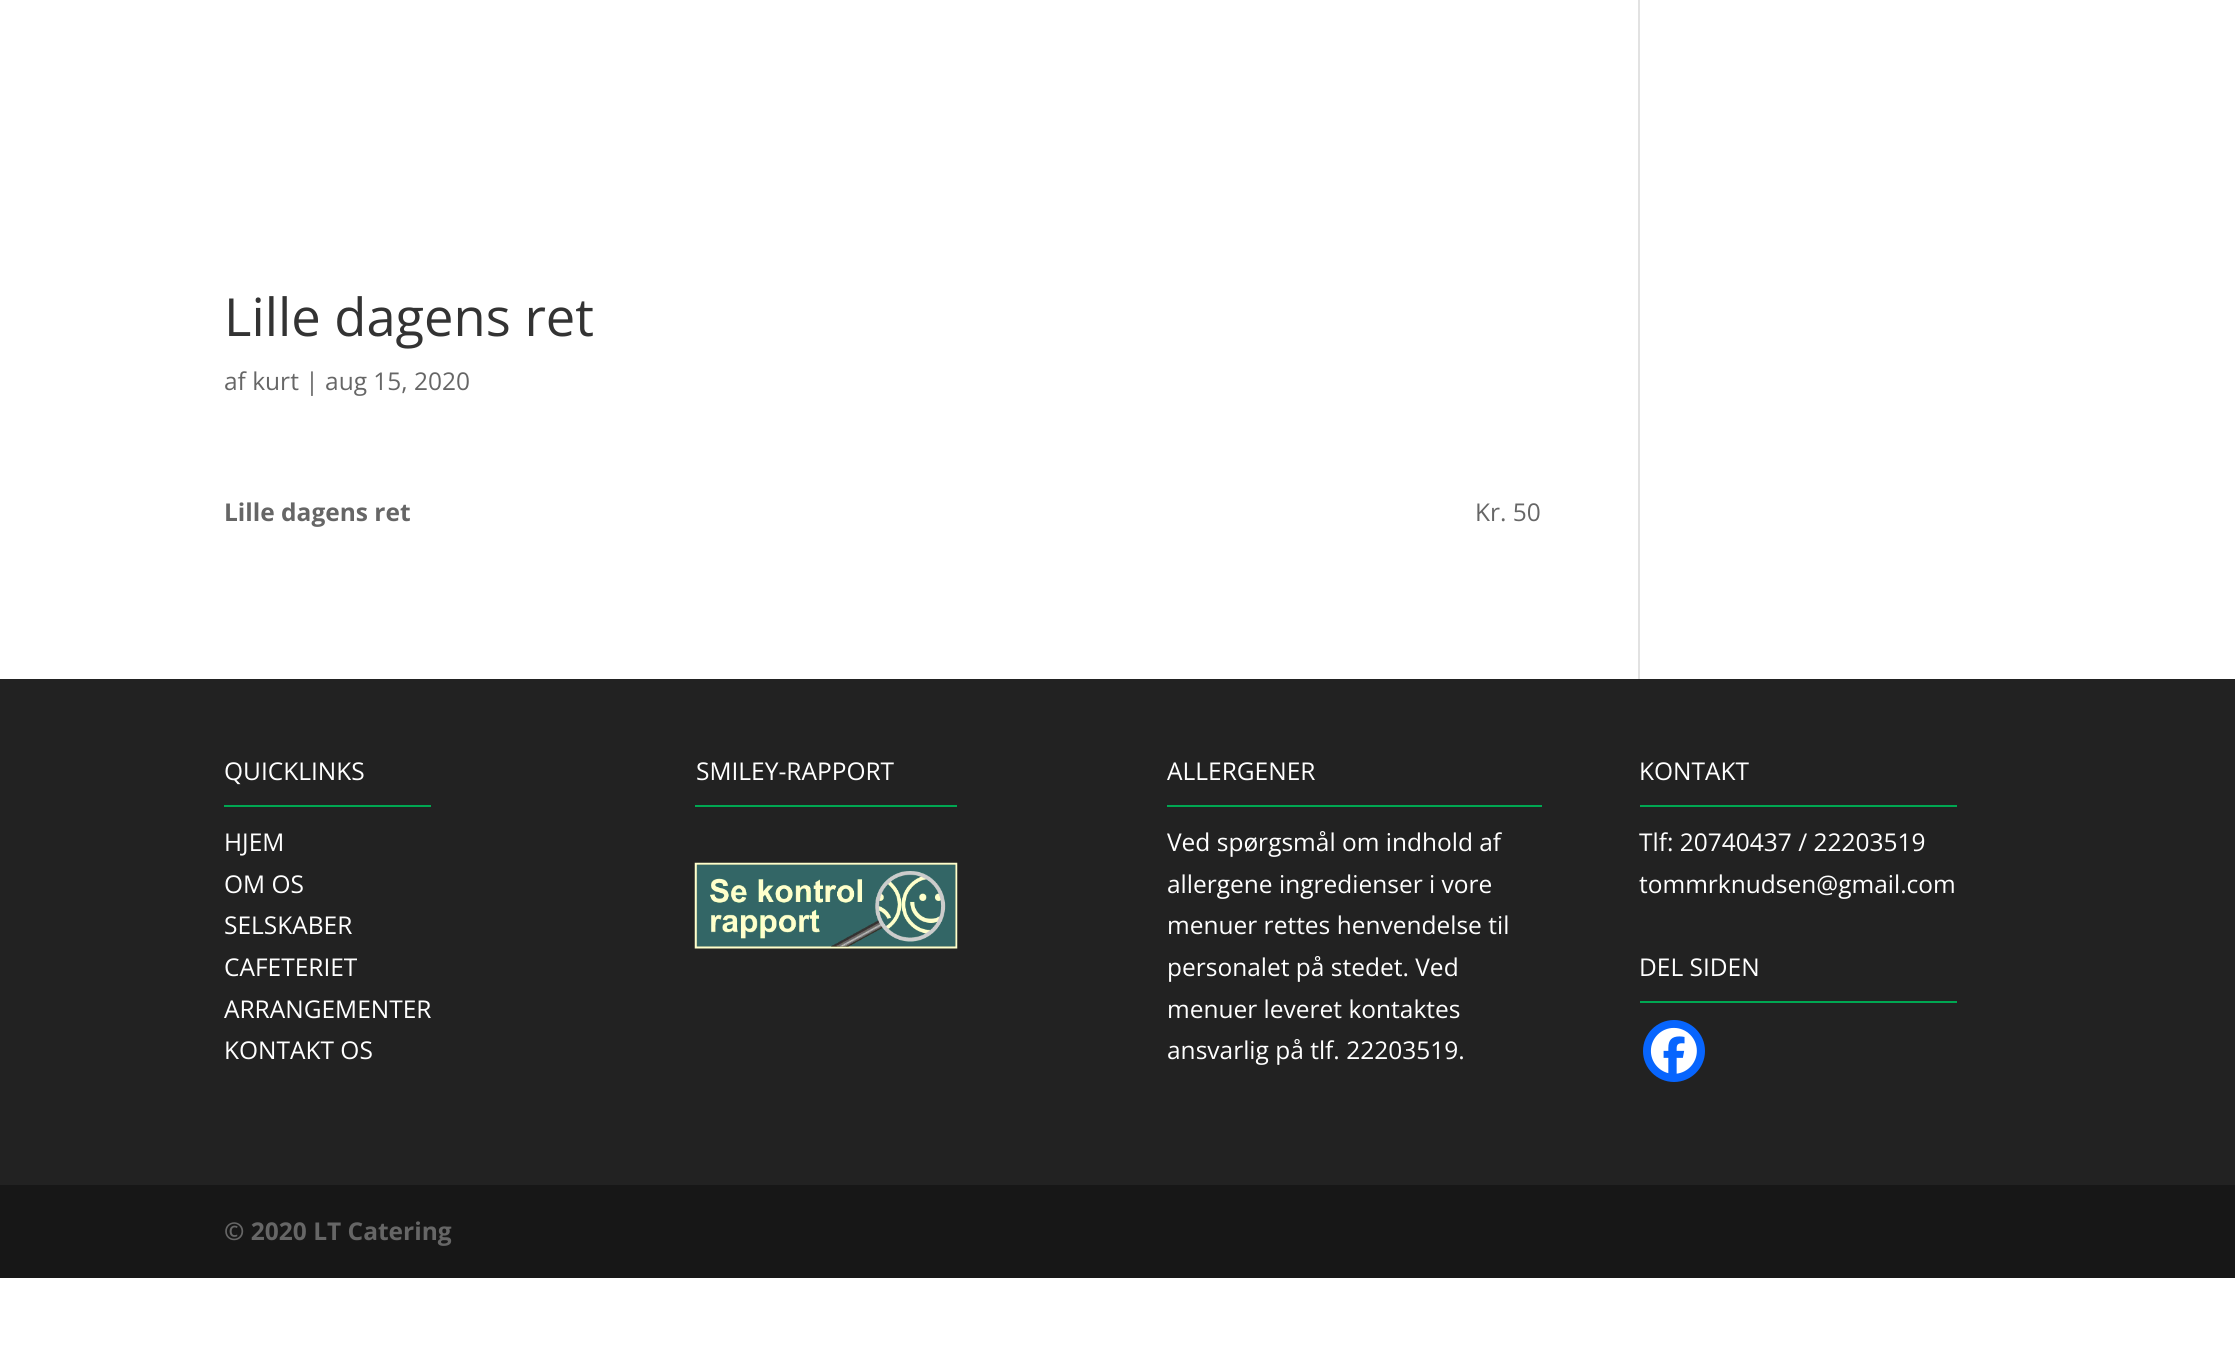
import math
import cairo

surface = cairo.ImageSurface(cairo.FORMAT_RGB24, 2235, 1356)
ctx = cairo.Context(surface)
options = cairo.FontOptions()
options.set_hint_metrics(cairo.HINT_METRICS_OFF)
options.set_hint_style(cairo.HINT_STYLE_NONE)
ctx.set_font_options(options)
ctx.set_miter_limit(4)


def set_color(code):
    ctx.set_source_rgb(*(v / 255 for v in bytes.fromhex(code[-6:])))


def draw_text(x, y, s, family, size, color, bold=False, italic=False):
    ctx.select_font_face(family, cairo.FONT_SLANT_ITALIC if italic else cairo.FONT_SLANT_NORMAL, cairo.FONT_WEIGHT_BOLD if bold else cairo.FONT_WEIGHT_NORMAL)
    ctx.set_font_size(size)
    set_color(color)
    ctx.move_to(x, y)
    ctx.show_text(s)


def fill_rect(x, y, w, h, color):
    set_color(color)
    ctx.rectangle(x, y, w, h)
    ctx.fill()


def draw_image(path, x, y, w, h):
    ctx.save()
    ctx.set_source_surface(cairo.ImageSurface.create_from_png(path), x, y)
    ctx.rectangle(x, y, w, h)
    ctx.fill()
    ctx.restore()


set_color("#ffffff")
ctx.paint()
draw_text(224, 336, "Lille dagens ret", "Open Sans", 52.5, "#333333")
draw_text(224, 390, "af kurt | aug 15, 2020", "Open Sans", 24.5, "#666666")
draw_text(224, 521, "Lille dagens ret", "Open Sans", 24.5, "#666666", bold=True)
draw_text(1475, 521, "Kr. 50", "Open Sans", 24.5, "#666666")
fill_rect(1638, 0, 2, 679, "#e2e2e2")
fill_rect(0, 679, 2235, 506, "#222222")
draw_text(224, 780, "QUICKLINKS", "Open Sans", 24.5, "#ffffff")
fill_rect(224, 805, 207, 2, "#00a752")
draw_text(224, 851, "HJEM", "Open Sans", 24.5, "#ffffff")
draw_text(224, 893, "OM OS", "Open Sans", 24.5, "#ffffff")
draw_text(224, 934, "SELSKABER", "Open Sans", 24.5, "#ffffff")
draw_text(224, 976, "CAFETERIET", "Open Sans", 24.5, "#ffffff")
draw_text(224, 1018, "ARRANGEMENTER", "Open Sans", 24.5, "#ffffff")
draw_text(224, 1059, "KONTAKT OS", "Open Sans", 24.5, "#ffffff")
draw_text(696, 780, "SMILEY-RAPPORT", "Open Sans", 24.5, "#ffffff")
fill_rect(695, 805, 262, 2, "#00a752")
draw_image("assets/img1.png", 694, 862, 264, 87)
draw_text(1167, 780, "ALLERGENER", "Open Sans", 24.5, "#ffffff")
fill_rect(1167, 805, 375, 2, "#00a752")
draw_text(1167, 851, "Ved spørgsmål om indhold af", "Open Sans", 24.5, "#ffffff")
draw_text(1167, 893, "allergene ingredienser i vore", "Open Sans", 24.5, "#ffffff")
draw_text(1167, 934, "menuer rettes henvendelse til", "Open Sans", 24.5, "#ffffff")
draw_text(1167, 976, "personalet på stedet. Ved", "Open Sans", 24.5, "#ffffff")
draw_text(1167, 1018, "menuer leveret kontaktes", "Open Sans", 24.5, "#ffffff")
draw_text(1167, 1059, "ansvarlig på tlf. 22203519.", "Open Sans", 24.5, "#ffffff")
draw_text(1639, 780, "KONTAKT", "Open Sans", 24.5, "#ffffff")
fill_rect(1640, 805, 317, 2, "#00a752")
draw_text(1639, 851, "Tlf: 20740437 / 22203519", "Open Sans", 24.5, "#ffffff")
draw_text(1639, 893, "tommrknudsen@gmail.com", "Open Sans", 24.5, "#ffffff")
draw_text(1639, 976, "DEL SIDEN", "Open Sans", 24.5, "#ffffff")
fill_rect(1640, 1001, 317, 2, "#00a752")
set_color("#0765fe")
ctx.new_path()
ctx.arc(1674, 1051, 31, 0, 2 * math.pi)
ctx.fill()
draw_image("assets/img2.png", 1650, 1027, 47, 47)
fill_rect(0, 1185, 2235, 93, "#171717")
draw_text(224, 1240, "© 2020 LT Catering", "Open Sans", 24.5, "#666666", bold=True)
surface.write_to_png("output.png")
